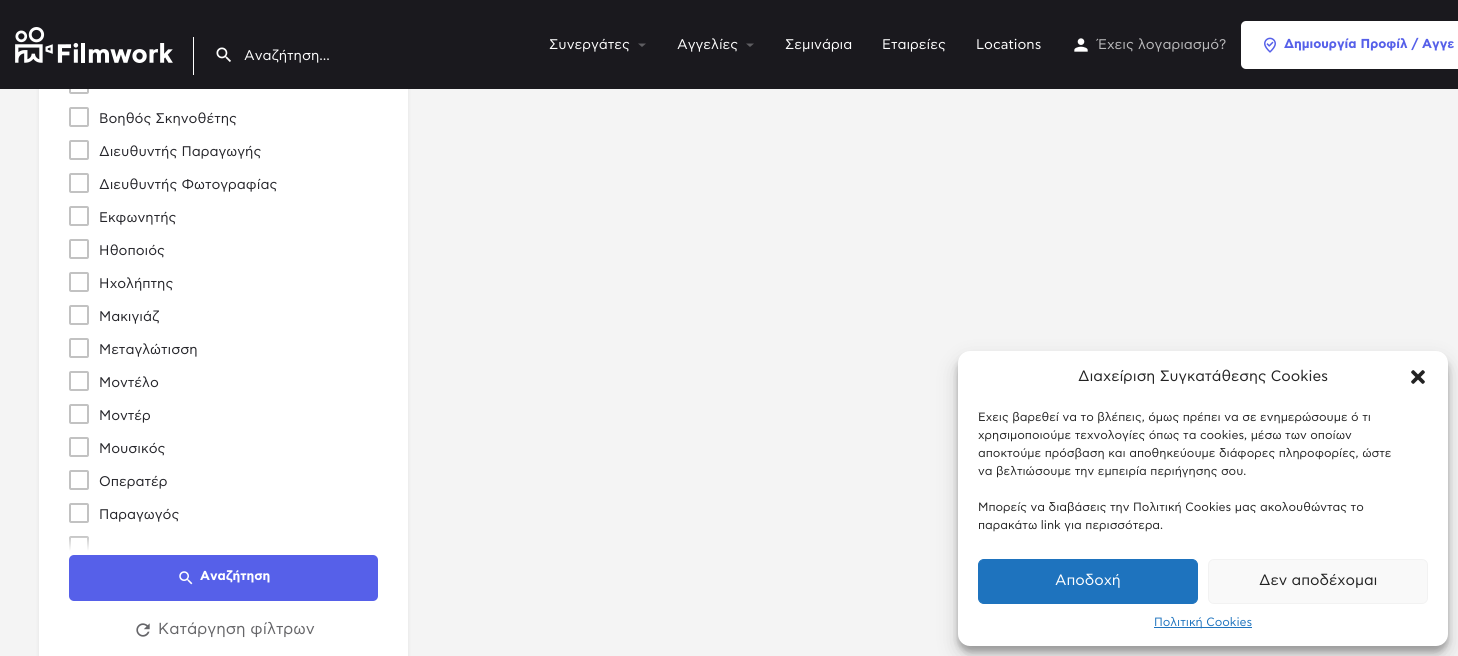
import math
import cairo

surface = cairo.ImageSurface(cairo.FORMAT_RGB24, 1458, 656)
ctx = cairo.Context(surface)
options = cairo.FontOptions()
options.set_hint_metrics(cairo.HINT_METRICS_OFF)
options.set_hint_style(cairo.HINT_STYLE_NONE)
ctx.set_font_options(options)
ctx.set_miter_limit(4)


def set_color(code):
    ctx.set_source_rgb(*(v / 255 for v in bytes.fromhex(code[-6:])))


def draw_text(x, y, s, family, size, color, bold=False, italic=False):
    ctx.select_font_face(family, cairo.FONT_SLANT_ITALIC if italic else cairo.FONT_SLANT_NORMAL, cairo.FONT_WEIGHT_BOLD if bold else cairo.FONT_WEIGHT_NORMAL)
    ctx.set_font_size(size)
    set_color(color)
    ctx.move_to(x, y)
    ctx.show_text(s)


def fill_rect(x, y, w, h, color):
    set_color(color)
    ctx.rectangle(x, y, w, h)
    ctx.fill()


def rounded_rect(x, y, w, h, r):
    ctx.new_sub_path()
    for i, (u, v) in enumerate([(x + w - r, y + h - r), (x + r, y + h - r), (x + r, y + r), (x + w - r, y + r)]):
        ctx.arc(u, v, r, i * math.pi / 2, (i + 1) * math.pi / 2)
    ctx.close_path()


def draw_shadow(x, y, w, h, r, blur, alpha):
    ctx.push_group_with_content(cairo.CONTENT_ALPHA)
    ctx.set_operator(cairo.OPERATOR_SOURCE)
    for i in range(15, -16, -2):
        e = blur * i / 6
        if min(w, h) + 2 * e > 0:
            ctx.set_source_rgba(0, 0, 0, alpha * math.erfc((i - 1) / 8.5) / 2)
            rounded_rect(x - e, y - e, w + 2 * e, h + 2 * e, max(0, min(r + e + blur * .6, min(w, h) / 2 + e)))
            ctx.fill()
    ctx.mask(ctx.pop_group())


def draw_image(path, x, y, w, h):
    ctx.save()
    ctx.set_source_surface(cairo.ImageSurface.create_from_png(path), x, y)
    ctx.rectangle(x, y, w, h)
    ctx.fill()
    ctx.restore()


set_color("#f4f4f4")
ctx.paint()
set_color("#000000")
draw_shadow(39, -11, 369, 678, 5, 2, 0.07)
fill_rect(39, 89, 369, 567, "#ffffff")
rounded_rect(70, 75, 18, 18, 1)
set_color("#c2c2c2")
ctx.stroke()
fill_rect(0, 0, 1458, 89, "#1a191e")
draw_text(549, 49, "Συνεργάτες", "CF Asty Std", 14, "#ffffff")
set_color("#5f5e62")
ctx.new_path()
ctx.move_to(638, 43.5)
ctx.line_to(646, 43.5)
ctx.line_to(642, 47)
ctx.close_path()
ctx.fill()
draw_text(677, 49, "Αγγελίες", "CF Asty Std", 14, "#ffffff")
set_color("#5f5e62")
ctx.new_path()
ctx.move_to(746, 43.5)
ctx.line_to(754, 43.5)
ctx.line_to(750, 47)
ctx.close_path()
ctx.fill()
draw_text(785, 49, "Σεμινάρια", "CF Asty Std", 14, "#ffffff")
draw_text(882, 49, "Εταιρείες", "CF Asty Std", 14, "#ffffff")
draw_text(976, 49, "Locations", "CF Asty Std", 14, "#ffffff")
draw_image("assets/img1.png", 1074, 38, 14, 14)
draw_text(1098, 49, "Έχεις λογαριασμό?", "CF Asty Std", 14, "#bababc")
set_color("#ffffff")
rounded_rect(1241, 21, 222, 48, 5)
ctx.fill()
draw_image("assets/img2.png", 1264, 37, 12, 16)
draw_text(1284, 48, "Δημιουργία Προφίλ / Αγγε", "CF Asty Std", 13, "#5660e9", bold=True)
draw_image("assets/img3.png", 15, 27, 158, 36)
fill_rect(193, 37, 1, 38, "#ffffff")
draw_image("assets/img4.png", 216, 47, 15, 15)
draw_text(244, 60, "Αναζήτηση...", "CF Asty Std", 14, "#ffffff")
rounded_rect(70, 108, 18, 18, 1)
set_color("#c2c2c2")
ctx.stroke()
draw_text(99, 123, "Βοηθός Σκηνοθέτης", "CF Asty Std", 14, "#242429")
rounded_rect(70, 141, 18, 18, 1)
set_color("#c2c2c2")
ctx.stroke()
draw_text(99, 156, "Διευθυντής Παραγωγής", "CF Asty Std", 14, "#242429")
rounded_rect(70, 174, 18, 18, 1)
set_color("#c2c2c2")
ctx.stroke()
draw_text(99, 189, "Διευθυντής Φωτογραφίας", "CF Asty Std", 14, "#242429")
rounded_rect(70, 207, 18, 18, 1)
set_color("#c2c2c2")
ctx.stroke()
draw_text(99, 222, "Εκφωνητής", "CF Asty Std", 14, "#242429")
rounded_rect(70, 240, 18, 18, 1)
set_color("#c2c2c2")
ctx.stroke()
draw_text(99, 255, "Ηθοποιός", "CF Asty Std", 14, "#242429")
rounded_rect(70, 273, 18, 18, 1)
set_color("#c2c2c2")
ctx.stroke()
draw_text(99, 288, "Ηχολήπτης", "CF Asty Std", 14, "#242429")
rounded_rect(70, 306, 18, 18, 1)
set_color("#c2c2c2")
ctx.stroke()
draw_text(99, 321, "Μακιγιάζ", "CF Asty Std", 14, "#242429")
rounded_rect(70, 339, 18, 18, 1)
set_color("#c2c2c2")
ctx.stroke()
draw_text(99, 354, "Μεταγλώτισση", "CF Asty Std", 14, "#242429")
rounded_rect(70, 372, 18, 18, 1)
set_color("#c2c2c2")
ctx.stroke()
draw_text(99, 387, "Μοντέλο", "CF Asty Std", 14, "#242429")
rounded_rect(70, 405, 18, 18, 1)
set_color("#c2c2c2")
ctx.stroke()
draw_text(99, 420, "Μοντέρ", "CF Asty Std", 14, "#242429")
rounded_rect(70, 438, 18, 18, 1)
set_color("#c2c2c2")
ctx.stroke()
draw_text(99, 453, "Μουσικός", "CF Asty Std", 14, "#242429")
rounded_rect(70, 471, 18, 18, 1)
set_color("#c2c2c2")
ctx.stroke()
draw_text(99, 486, "Οπερατέρ", "CF Asty Std", 14, "#242429")
rounded_rect(70, 504, 18, 18, 1)
set_color("#c2c2c2")
ctx.stroke()
draw_text(99, 519, "Παραγωγός", "CF Asty Std", 14, "#242429")
rounded_rect(70, 537, 18, 18, 1)
set_color("#c2c2c2")
ctx.stroke()
fill_rect(69, 555, 20, 1, "#ffffff")
gradient = cairo.LinearGradient(224, 555, 224, 535)
gradient.add_color_stop_rgba(0.2, 1, 1, 1, 1)
gradient.add_color_stop_rgba(1, 1, 1, 1, 0)
ctx.set_source(gradient)
ctx.rectangle(69, 536, 20, 19)
ctx.fill()
set_color("#5660e9")
rounded_rect(69, 555, 309, 46, 5)
ctx.fill()
draw_image("assets/img5.png", 179, 571, 14, 14)
draw_text(200, 580, "Αναζήτηση", "CF Asty Std", 13, "#ffffff", bold=True)
draw_image("assets/img6.png", 136, 623, 14, 14)
draw_text(158, 634, "Κατάργηση φίλτρων", "CF Asty Std", 16, "#666669")
set_color("#000000")
draw_shadow(958, 357, 490, 295, 12, 3, 0.23)
draw_shadow(958, 361, 490, 295, 12, 10, 0.19)
set_color("#ffffff")
rounded_rect(958, 351, 490, 295, 12)
ctx.fill()
draw_text(1078, 381, "Διαχείριση Συγκατάθεσης Cookies", "CF Asty Std", 15, "#222222")
draw_image("assets/img7.png", 1411, 370, 14, 14)
ctx.save()
ctx.rectangle(978, 408, 450, 131)
ctx.clip()
draw_text(978, 421, "Έχεις βαρεθεί να το βλέπεις, όμως πρέπει να σε ενημερώσουμε ό τι", "CF Asty Std", 12, "#222222")
ctx.restore()
draw_text(978, 439, "χρησιμοποιούμε τεχνολογίες όπως τα cookies, μέσω των οποίων", "CF Asty Std", 12, "#222222")
draw_text(978, 457, "αποκτούμε πρόσβαση και αποθηκεύουμε διάφορες πληροφορίες, ώστε", "CF Asty Std", 12, "#222222")
draw_text(978, 475, "να βελτιώσουμε την εμπειρία περιήγησης σου.", "CF Asty Std", 12, "#222222")
draw_text(978, 511, "Μπορείς να διαβάσεις την Πολιτική Cookies μας ακολουθώντας το", "CF Asty Std", 12, "#222222")
draw_text(978, 529, "παρακάτω link για περισσότερα.", "CF Asty Std", 12, "#222222")
set_color("#1e73be")
rounded_rect(978.5, 559.5, 219, 44, 5.5)
ctx.fill_preserve()
ctx.set_line_width(1)
ctx.stroke()
draw_text(1055, 585, "Αποδοχή", "CF Asty Std", 15, "#ffffff")
set_color("#f9f9f9")
rounded_rect(1208.5, 559.5, 219, 44, 5.5)
ctx.fill_preserve()
set_color("#f2f2f2")
ctx.stroke()
draw_text(1259, 585, "Δεν αποδέχομαι", "CF Asty Std", 15, "#222222")
fill_rect(1154, 627, 98, 1, "#1e73be")
draw_text(1154, 626, "Πολιτική Cookies", "CF Asty Std", 12, "#1e73be")
surface.write_to_png("output.png")
